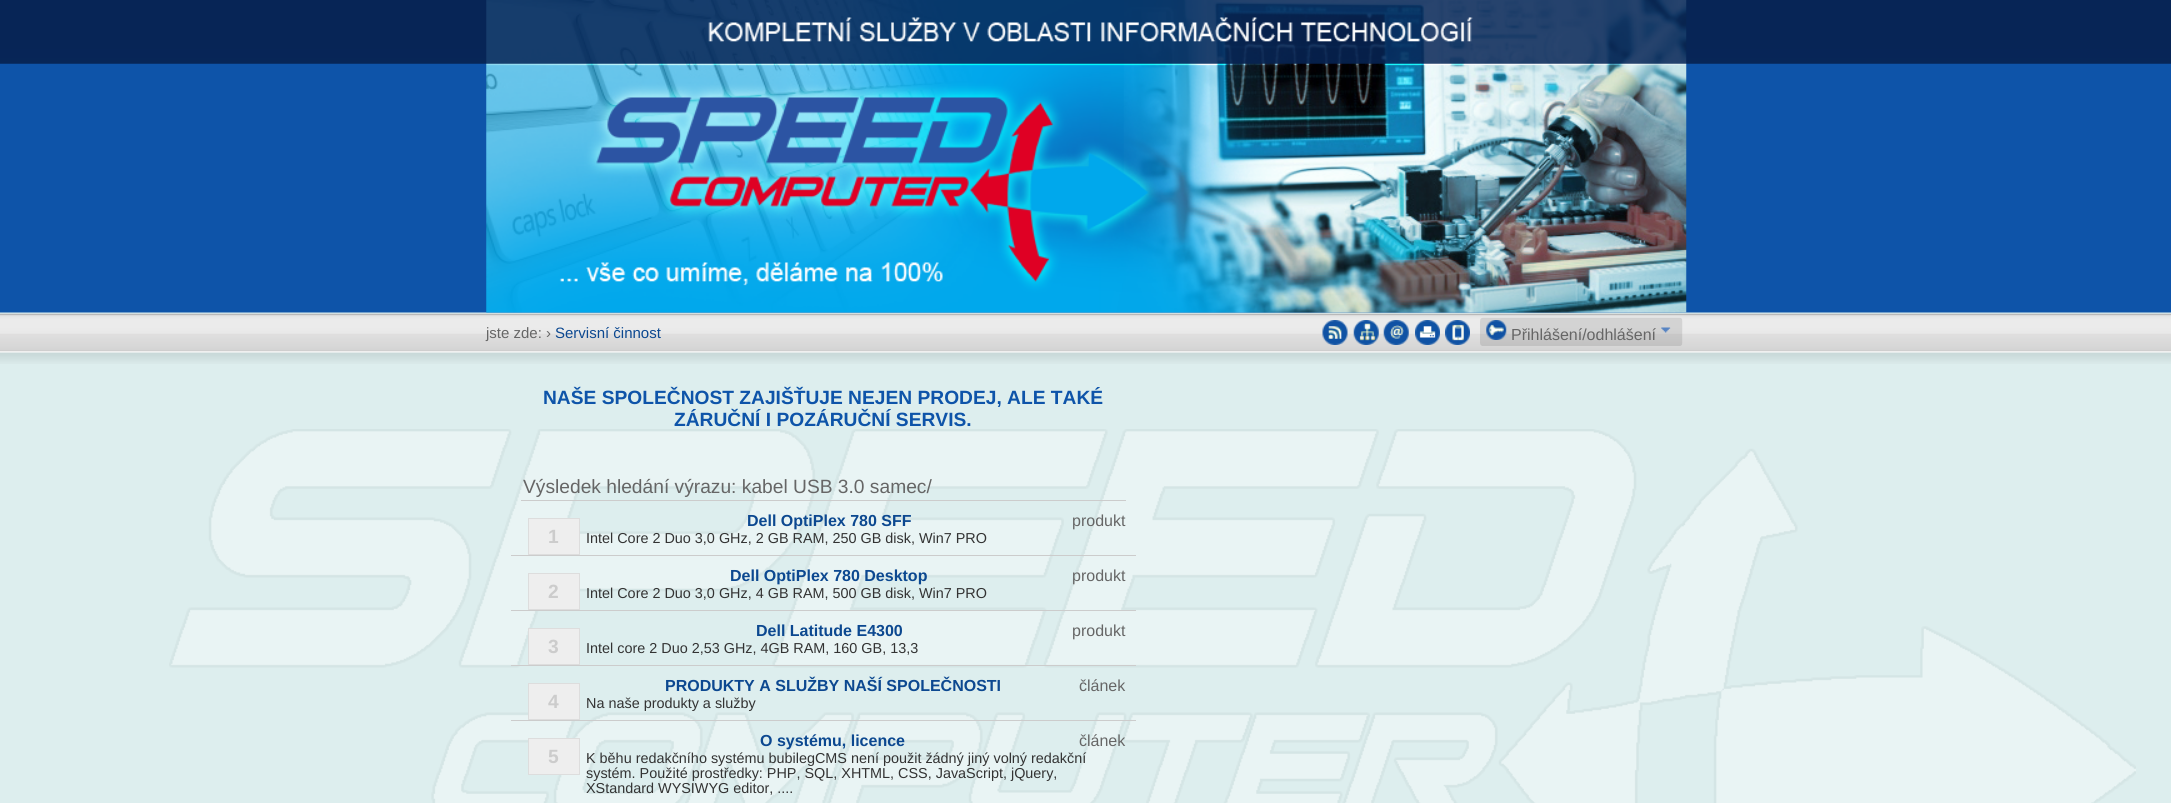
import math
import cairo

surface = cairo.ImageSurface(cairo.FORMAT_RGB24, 2171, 803)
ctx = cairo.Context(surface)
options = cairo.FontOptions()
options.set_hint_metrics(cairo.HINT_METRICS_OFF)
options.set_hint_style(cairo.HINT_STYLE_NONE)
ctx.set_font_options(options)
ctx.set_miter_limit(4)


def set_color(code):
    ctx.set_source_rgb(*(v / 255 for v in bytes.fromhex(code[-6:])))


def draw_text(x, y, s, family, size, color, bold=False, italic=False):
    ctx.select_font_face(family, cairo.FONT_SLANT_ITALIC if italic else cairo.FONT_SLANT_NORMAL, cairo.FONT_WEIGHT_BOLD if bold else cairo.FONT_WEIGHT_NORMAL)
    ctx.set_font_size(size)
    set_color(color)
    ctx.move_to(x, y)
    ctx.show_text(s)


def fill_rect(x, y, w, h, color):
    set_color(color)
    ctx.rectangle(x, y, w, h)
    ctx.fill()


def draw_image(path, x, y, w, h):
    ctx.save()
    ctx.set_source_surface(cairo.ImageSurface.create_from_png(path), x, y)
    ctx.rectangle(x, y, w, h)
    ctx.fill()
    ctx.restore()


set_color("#ddeeee")
ctx.paint()
draw_image("assets/img1.png", 0, 0, 2171, 313)
draw_image("assets/img2.png", 486, 0, 1201, 313)
draw_image("assets/img3.png", 0, 313, 2171, 51)
draw_text(486, 338, "jste zde: ›", "Liberation Sans", 15, "#666666")
draw_text(555, 338, "Servisní činnost", "Liberation Sans", 15, "#0c4890")
draw_image("assets/img4.png", 1322, 320, 26, 25)
draw_image("assets/img5.png", 1353, 320, 26, 25)
draw_image("assets/img6.png", 1383, 320, 26, 25)
draw_image("assets/img7.png", 1415, 320, 25, 25)
draw_image("assets/img8.png", 1445, 320, 25, 25)
draw_image("assets/img9.png", 1480, 317, 203, 29)
draw_image("assets/img10.png", 1486, 320, 21, 20)
draw_text(1511, 340, "Přihlášení/odhlášení", "Liberation Sans", 16, "#666666")
draw_image("assets/img11.png", 1661, 327, 10, 6)
draw_image("assets/img12.png", 169, 429, 1967, 374)
draw_text(543, 404, "NAŠE SPOLEČNOST ZAJIŠŤUJE NEJEN PRODEJ, ALE TAKÉ", "Liberation Sans", 19.2, "#0e54a9", bold=True)
draw_text(674, 426, "ZÁRUČNÍ I POZÁRUČNÍ SERVIS.", "Liberation Sans", 19.2, "#0e54a9", bold=True)
fill_rect(521, 500, 605, 1, "#cccccc")
draw_text(523, 493, "Výsledek hledání výrazu: kabel USB 3.0 samec/", "Liberation Sans", 19.2, "#666666")
draw_text(747, 526, "Dell OptiPlex 780 SFF", "Liberation Sans", 16, "#0c4890", bold=True)
draw_text(1072, 526, "produkt", "Liberation Sans", 16, "#666666")
set_color("#eeeeee")
ctx.rectangle(528.5, 518.5, 51, 36)
ctx.fill_preserve()
set_color("#dddddd")
ctx.set_line_width(1)
ctx.stroke()
draw_text(548, 543, "1", "Liberation Sans", 19.2, "#cccccc", bold=True)
draw_text(586, 543, "Intel Core 2 Duo 3,0 GHz, 2 GB RAM, 250 GB disk, Win7 PRO", "Liberation Sans", 14.4, "#333333")
fill_rect(511, 555, 625, 1, "#cccccc")
draw_text(730, 581, "Dell OptiPlex 780 Desktop", "Liberation Sans", 16, "#0c4890", bold=True)
draw_text(1072, 581, "produkt", "Liberation Sans", 16, "#666666")
set_color("#eeeeee")
ctx.rectangle(528.5, 573.5, 51, 36)
ctx.fill_preserve()
set_color("#dddddd")
ctx.stroke()
draw_text(548, 598, "2", "Liberation Sans", 19.2, "#cccccc", bold=True)
draw_text(586, 598, "Intel Core 2 Duo 3,0 GHz, 4 GB RAM, 500 GB disk, Win7 PRO", "Liberation Sans", 14.4, "#333333")
fill_rect(511, 610, 625, 1, "#cccccc")
draw_text(756, 636, "Dell Latitude E4300", "Liberation Sans", 16, "#0c4890", bold=True)
draw_text(1072, 636, "produkt", "Liberation Sans", 16, "#666666")
set_color("#eeeeee")
ctx.rectangle(528.5, 628.5, 51, 36)
ctx.fill_preserve()
set_color("#dddddd")
ctx.stroke()
draw_text(548, 653, "3", "Liberation Sans", 19.2, "#cccccc", bold=True)
draw_text(586, 653, "Intel core 2 Duo 2,53 GHz, 4GB RAM, 160 GB, 13,3", "Liberation Sans", 14.4, "#333333")
fill_rect(511, 665, 625, 1, "#cccccc")
draw_text(665, 691, "PRODUKTY A SLUŽBY NAŠÍ SPOLEČNOSTI", "Liberation Sans", 16, "#0c4890", bold=True)
draw_text(1079, 691, "článek", "Liberation Sans", 16, "#666666")
set_color("#eeeeee")
ctx.rectangle(528.5, 683.5, 51, 36)
ctx.fill_preserve()
set_color("#dddddd")
ctx.stroke()
draw_text(548, 708, "4", "Liberation Sans", 19.2, "#cccccc", bold=True)
draw_text(586, 708, "Na naše produkty a služby", "Liberation Sans", 14.4, "#333333")
fill_rect(511, 720, 625, 1, "#cccccc")
draw_text(760, 746, "O systému, licence", "Liberation Sans", 16, "#0c4890", bold=True)
draw_text(1079, 746, "článek", "Liberation Sans", 16, "#666666")
set_color("#eeeeee")
ctx.rectangle(528.5, 738.5, 51, 36)
ctx.fill_preserve()
set_color("#dddddd")
ctx.stroke()
draw_text(548, 763, "5", "Liberation Sans", 19.2, "#cccccc", bold=True)
draw_text(586, 763, "K běhu redakčního systému bubilegCMS není použit žádný jiný volný redakční", "Liberation Sans", 14.4, "#333333")
draw_text(586, 778, "systém. Použité prostředky: PHP, SQL, XHTML, CSS, JavaScript, jQuery,", "Liberation Sans", 14.4, "#333333")
draw_text(586, 793, "XStandard WYSIWYG editor, ....", "Liberation Sans", 14.4, "#333333")
surface.write_to_png("output.png")
